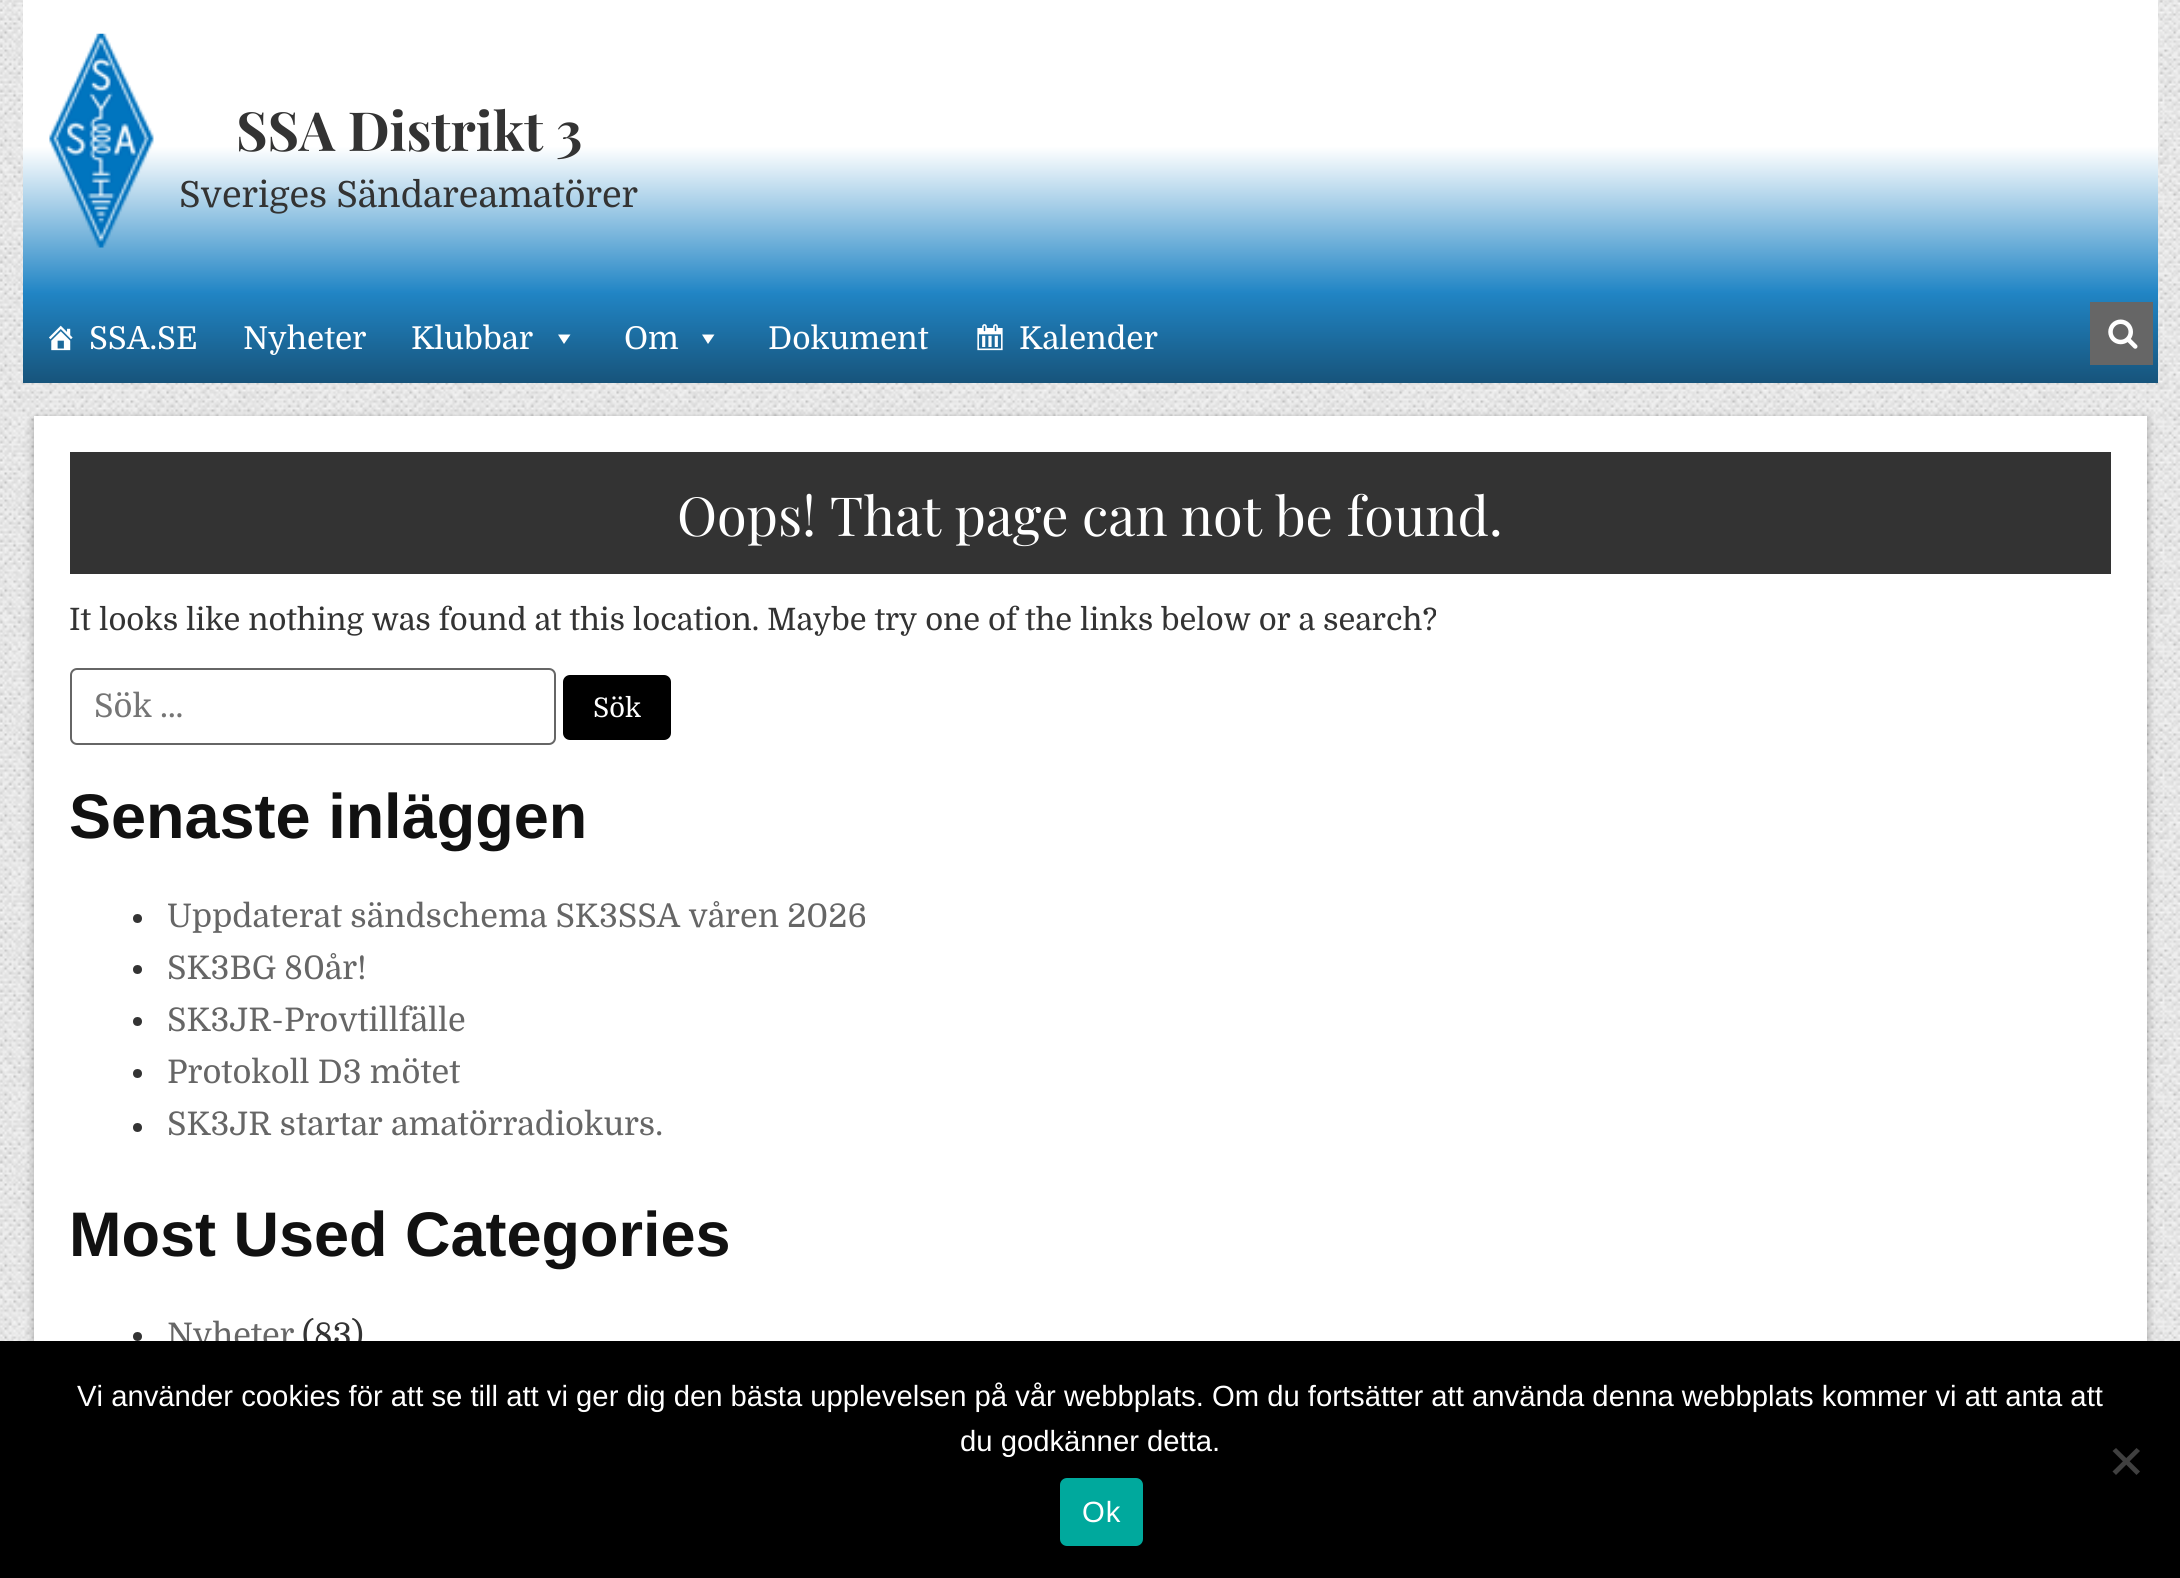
import math
import cairo

surface = cairo.ImageSurface(cairo.FORMAT_RGB24, 2180, 1578)
ctx = cairo.Context(surface)
options = cairo.FontOptions()
options.set_hint_metrics(cairo.HINT_METRICS_OFF)
options.set_hint_style(cairo.HINT_STYLE_NONE)
ctx.set_font_options(options)
ctx.set_miter_limit(4)


def set_color(code):
    ctx.set_source_rgb(*(v / 255 for v in bytes.fromhex(code[-6:])))


def draw_text(x, y, s, family, size, color, bold=False, italic=False):
    ctx.select_font_face(family, cairo.FONT_SLANT_ITALIC if italic else cairo.FONT_SLANT_NORMAL, cairo.FONT_WEIGHT_BOLD if bold else cairo.FONT_WEIGHT_NORMAL)
    ctx.set_font_size(size)
    set_color(color)
    ctx.move_to(x, y)
    ctx.show_text(s)


def draw_spaced(x, y, s, letter, word):
    ctx.move_to(x, y)
    for ch in s:
        ctx.show_text(ch)
        ctx.rel_move_to(letter + word * (ch == ' '), 0)


def fill_rect(x, y, w, h, color):
    set_color(color)
    ctx.rectangle(x, y, w, h)
    ctx.fill()


def rounded_rect(x, y, w, h, r):
    ctx.new_sub_path()
    for i, (u, v) in enumerate([(x + w - r, y + h - r), (x + r, y + h - r), (x + r, y + r), (x + w - r, y + r)]):
        ctx.arc(u, v, r, i * math.pi / 2, (i + 1) * math.pi / 2)
    ctx.close_path()


def draw_shadow(x, y, w, h, r, blur, alpha):
    ctx.push_group_with_content(cairo.CONTENT_ALPHA)
    ctx.set_operator(cairo.OPERATOR_SOURCE)
    for i in range(15, -16, -2):
        e = blur * i / 6
        if min(w, h) + 2 * e > 0:
            ctx.set_source_rgba(0, 0, 0, alpha * math.erfc((i - 1) / 8.5) / 2)
            rounded_rect(x - e, y - e, w + 2 * e, h + 2 * e, max(0, min(r + e + blur * .6, min(w, h) / 2 + e)))
            ctx.fill()
    ctx.mask(ctx.pop_group())


def draw_image(path, x, y, w, h):
    ctx.save()
    ctx.set_source_surface(cairo.ImageSurface.create_from_png(path), x, y)
    ctx.rectangle(x, y, w, h)
    ctx.fill()
    ctx.restore()


set_color("#ffffff")
ctx.paint()
draw_image("assets/img1.png", 0, 0, 2180, 1341)
gradient = cairo.LinearGradient(1090, 0, 1090, 293)
gradient.add_color_stop_rgba(0, 1, 1, 1, 1)
gradient.add_color_stop_rgba(0.5, 1, 1, 1, 1)
gradient.add_color_stop_rgba(1, 0.129, 0.522, 0.773, 1)
ctx.set_source(gradient)
ctx.rectangle(23, 0, 2135, 293)
ctx.fill()
draw_image("assets/img2.png", 49, 33, 105, 215)
draw_text(236, 151, "SSA Distrikt 3", "Playfair Display", 54, "#333333", bold=True)
draw_text(179, 207, "Sveriges Sändareamatörer", "Domine", 36, "#333333")
gradient = cairo.LinearGradient(1090, 292, 1090, 383)
gradient.add_color_stop_rgba(0, 0.129, 0.522, 0.773, 1)
gradient.add_color_stop_rgba(1, 0.09, 0.329, 0.482, 1)
ctx.set_source(gradient)
ctx.rectangle(23, 293, 2135, 90)
ctx.fill()
draw_image("assets/img3.png", 49, 325, 24, 26)
draw_text(89, 349, "SSA.SE", "Domine", 31.5, "#ffffff")
draw_text(243, 349, "Nyheter", "Domine", 31.5, "#ffffff")
draw_text(411, 349, "Klubbar", "Domine", 31.5, "#ffffff")
ctx.new_path()
ctx.move_to(570.5, 334.5)
ctx.line_to(564, 344)
ctx.line_to(558, 334.5)
ctx.close_path()
ctx.fill()
draw_text(624, 349, "Om", "Domine", 31.5, "#ffffff")
ctx.new_path()
ctx.move_to(714.5, 334.5)
ctx.line_to(708, 344)
ctx.line_to(702, 334.5)
ctx.close_path()
ctx.fill()
draw_text(768, 349, "Dokument", "Domine", 31.5, "#ffffff")
draw_image("assets/img4.png", 977, 324, 26, 27)
draw_text(1019, 349, "Kalender", "Domine", 31.5, "#ffffff")
fill_rect(2090, 302, 63, 63, "#666666")
draw_image("assets/img5.png", 2108, 319, 30, 30)
set_color("#000000")
draw_shadow(34, 419, 2113, 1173, 0, 4.5, 0.3)
fill_rect(34, 416, 2113, 925, "#ffffff")
fill_rect(70, 452, 2041, 122, "#333333")
draw_text(677, 536, "Oops! That page can not be found.", "Playfair Display", 54, "#ffffff")
draw_text(69, 630, "It looks like nothing was found at this location. Maybe try one of the links below or a search?", "Domine", 30.85, "#333333")
rounded_rect(71, 669, 484, 75, 6)
set_color("#666666")
ctx.stroke()
draw_text(94, 717, "Sök …", "Domine", 32.5, "#757575")
set_color("#000000")
rounded_rect(564, 676, 106, 63, 6)
ctx.fill_preserve()
ctx.stroke()
draw_text(593, 717, "Sök", "Domine", 27, "#ffffff")
draw_text(69, 838, "Senaste inläggen", "Liberation Sans", 63, "#111111", bold=True)
set_color("#333333")
ctx.new_path()
ctx.arc(137.5, 918.5, 4.5, 0, 2 * math.pi)
ctx.fill()
draw_text(167, 927, "Uppdaterat sändschema SK3SSA våren 2026", "Domine", 32.5, "#666666")
set_color("#333333")
ctx.new_path()
ctx.arc(137.5, 969.5, 4.5, 0, 2 * math.pi)
ctx.fill()
draw_text(167, 979, "SK3BG 80år!", "Domine", 32.5, "#666666")
set_color("#333333")
ctx.new_path()
ctx.arc(137.5, 1021.5, 4.5, 0, 2 * math.pi)
ctx.fill()
draw_text(167, 1031, "SK3JR-Provtillfälle", "Domine", 32.5, "#666666")
set_color("#333333")
ctx.new_path()
ctx.arc(137.5, 1073.5, 4.5, 0, 2 * math.pi)
ctx.fill()
draw_text(167, 1083, "Protokoll D3 mötet", "Domine", 32.5, "#666666")
set_color("#333333")
ctx.new_path()
ctx.arc(137.5, 1127.5, 4.5, 0, 2 * math.pi)
ctx.fill()
draw_text(167, 1135, "SK3JR startar amatörradiokurs.", "Domine", 32.5, "#666666")
draw_text(69, 1256, "Most Used Categories", "Liberation Sans", 63, "#111111", bold=True)
set_color("#333333")
ctx.new_path()
ctx.arc(137.5, 1336.5, 4.5, 0, 2 * math.pi)
ctx.fill()
draw_text(167, 1346, "Nyheter", "Domine", 32.5, "#666666")
draw_text(302, 1346, "(83)", "Domine", 32.5, "#333333")
fill_rect(0, 1341, 2180, 237, "#000000")
draw_text(77, 1406, "Vi använder cookies för att se till att vi ger dig den bästa upplevelsen på vår webbplats. Om du fortsätter att använda denna webbplats kommer vi att anta att", "Liberation Sans", 29.25, "#ffffff")
draw_text(960, 1451, "du godkänner detta.", "Liberation Sans", 29.25, "#ffffff")
set_color("#404040")
ctx.new_path()
ctx.move_to(2136.5, 1448)
ctx.line_to(2140, 1451)
ctx.line_to(2116, 1475)
ctx.line_to(2112.5, 1471.5)
ctx.close_path()
ctx.fill()
ctx.new_path()
ctx.move_to(2112.5, 1451)
ctx.line_to(2116, 1448)
ctx.line_to(2140, 1471.5)
ctx.line_to(2136.5, 1475)
ctx.close_path()
ctx.fill()
set_color("#00a99d")
rounded_rect(1060, 1478, 83, 68, 7)
ctx.fill()
set_color("#ffffff")
draw_spaced(1082, 1522, "Ok", 1, 0)
surface.write_to_png("output.png")
